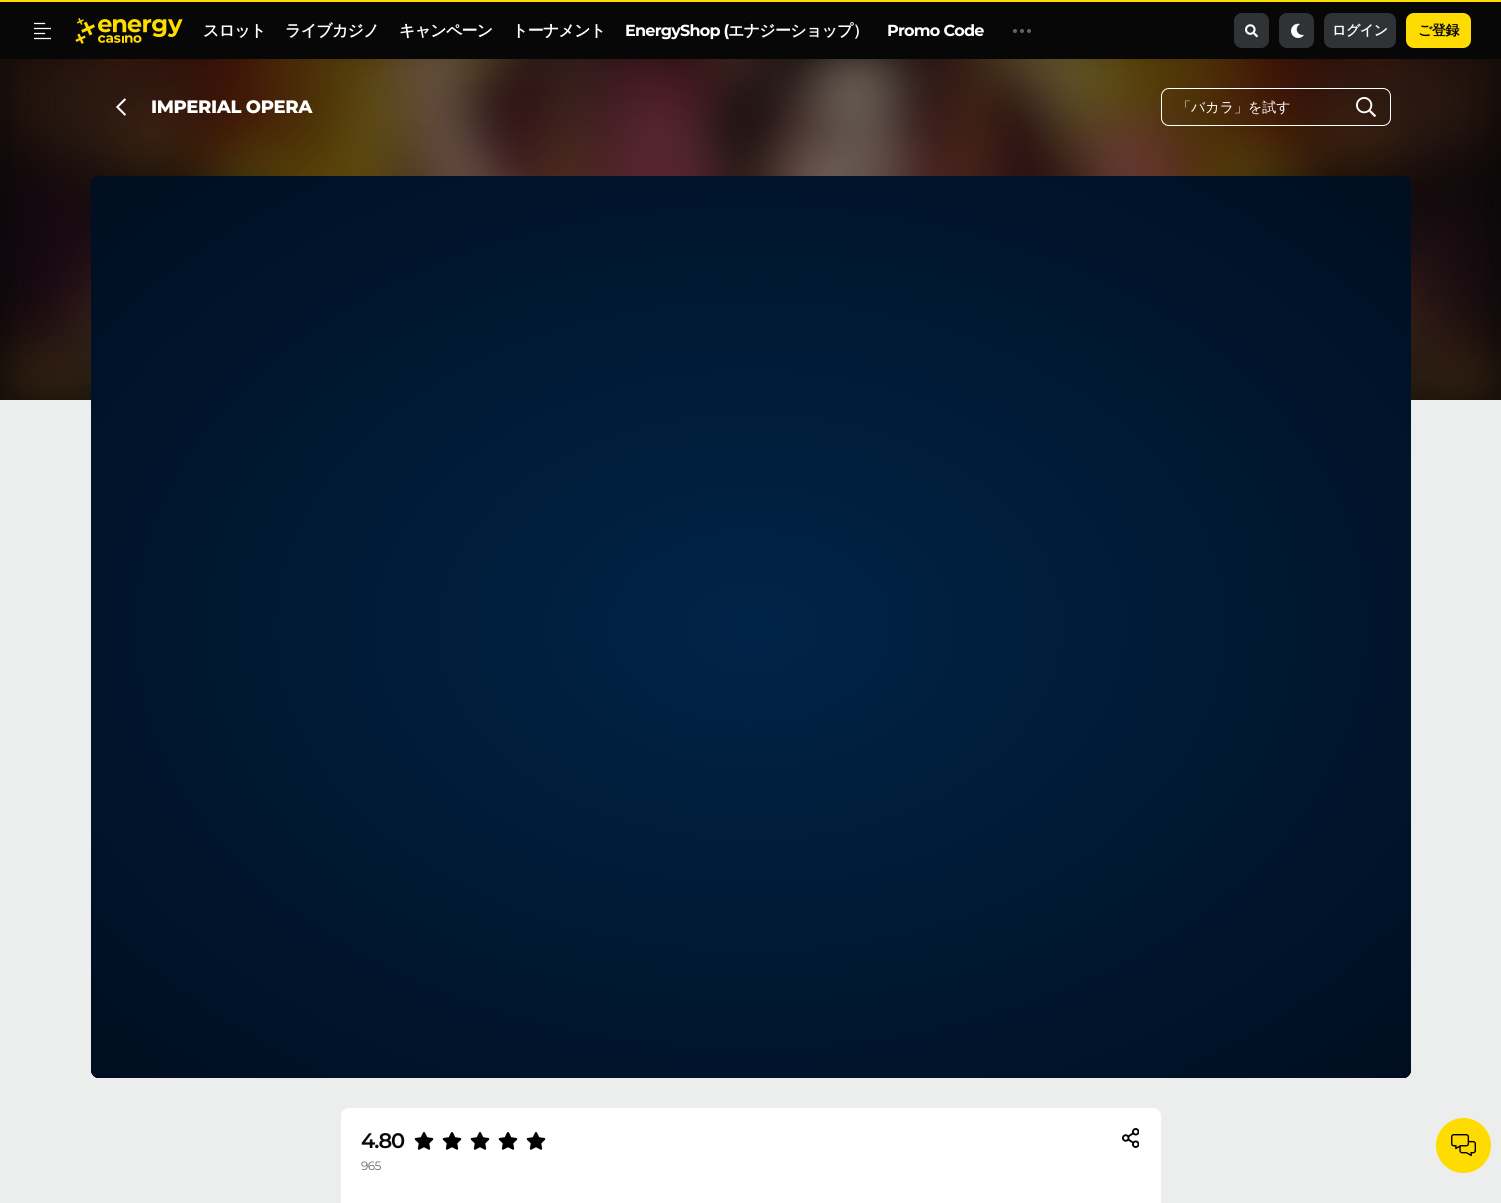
import math
import cairo

surface = cairo.ImageSurface(cairo.FORMAT_RGB24, 1501, 1203)
ctx = cairo.Context(surface)
options = cairo.FontOptions()
options.set_hint_metrics(cairo.HINT_METRICS_OFF)
options.set_hint_style(cairo.HINT_STYLE_NONE)
ctx.set_font_options(options)
ctx.set_miter_limit(4)


def set_color(code):
    ctx.set_source_rgb(*(v / 255 for v in bytes.fromhex(code[-6:])))


def draw_text(x, y, s, family, size, color, bold=False, italic=False):
    ctx.select_font_face(family, cairo.FONT_SLANT_ITALIC if italic else cairo.FONT_SLANT_NORMAL, cairo.FONT_WEIGHT_BOLD if bold else cairo.FONT_WEIGHT_NORMAL)
    ctx.set_font_size(size)
    set_color(color)
    ctx.move_to(x, y)
    ctx.show_text(s)


def draw_spaced(x, y, s, letter, word):
    ctx.move_to(x, y)
    for ch in s:
        ctx.show_text(ch)
        ctx.rel_move_to(letter + word * (ch == ' '), 0)


def fill_rect(x, y, w, h, color):
    set_color(color)
    ctx.rectangle(x, y, w, h)
    ctx.fill()


def rounded_rect(x, y, w, h, r):
    ctx.new_sub_path()
    for i, (u, v) in enumerate([(x + w - r, y + h - r), (x + r, y + h - r), (x + r, y + r), (x + w - r, y + r)]):
        ctx.arc(u, v, r, i * math.pi / 2, (i + 1) * math.pi / 2)
    ctx.close_path()


def draw_shadow(x, y, w, h, r, blur, alpha):
    ctx.push_group_with_content(cairo.CONTENT_ALPHA)
    ctx.set_operator(cairo.OPERATOR_SOURCE)
    for i in range(15, -16, -2):
        e = blur * i / 6
        if min(w, h) + 2 * e > 0:
            ctx.set_source_rgba(0, 0, 0, alpha * math.erfc((i - 1) / 8.5) / 2)
            rounded_rect(x - e, y - e, w + 2 * e, h + 2 * e, max(0, min(r + e + blur * .6, min(w, h) / 2 + e)))
            ctx.fill()
    ctx.mask(ctx.pop_group())


def draw_image(path, x, y, w, h):
    ctx.save()
    ctx.set_source_surface(cairo.ImageSurface.create_from_png(path), x, y)
    ctx.rectangle(x, y, w, h)
    ctx.fill()
    ctx.restore()


set_color("#eceded")
ctx.paint()
fill_rect(0, 59, 1501, 341, "#070707")
draw_image("assets/img5.png", 0, 59, 1501, 341)
rounded_rect(1161.5, 88.5, 229, 37, 7.5)
set_color("#ffffff")
ctx.set_line_width(1)
ctx.stroke()
set_color("#070808")
draw_shadow(0, 2, 1501, 59, 0, 10, 0.1)
fill_rect(0, 2, 1501, 57, "#070707")
fill_rect(0, 0, 1501, 2, "#ffdc00")
draw_image("assets/img1.png", 34, 22, 17, 18)
draw_image("assets/img2.png", 75, 18, 108, 26)
ctx.select_font_face("WenQuanYi Zen Hei", cairo.FONT_SLANT_NORMAL, cairo.FONT_WEIGHT_BOLD)
ctx.set_font_size(16)
set_color("#ffffff")
draw_spaced(203, 36, "スロット", -0.75, 0)
draw_spaced(285, 36, "ライブカジノ", -0.75, 0)
draw_spaced(399, 36, "キャンペーン", -0.75, 0)
draw_spaced(512, 36, "トーナメント", -0.75, 0)
ctx.select_font_face("Montserrat", cairo.FONT_SLANT_NORMAL, cairo.FONT_WEIGHT_BOLD)
draw_spaced(625, 36, "EnergyShop (", -0.75, 0)
ctx.select_font_face("WenQuanYi Zen Hei", cairo.FONT_SLANT_NORMAL, cairo.FONT_WEIGHT_BOLD)
draw_spaced(728, 36, "エナジーショップ）", -0.75, 0)
ctx.select_font_face("Montserrat", cairo.FONT_SLANT_NORMAL, cairo.FONT_WEIGHT_BOLD)
draw_spaced(887, 36, "Promo Code", -0.75, 0)
set_color("#61666a")
ctx.new_path()
ctx.arc(1015, 31, 2, 0, 2 * math.pi)
ctx.fill()
ctx.arc(1022, 31, 2, 0, 2 * math.pi)
ctx.fill()
ctx.arc(1029, 31, 2, 0, 2 * math.pi)
ctx.fill()
set_color("#303335")
rounded_rect(1235, 14, 33, 33, 7)
ctx.fill_preserve()
ctx.set_line_width(2)
ctx.stroke()
draw_image("assets/img3.png", 1245, 24, 13, 14)
rounded_rect(1280, 14, 33, 33, 7)
ctx.fill_preserve()
ctx.stroke()
draw_image("assets/img4.png", 1291, 23, 13, 15)
rounded_rect(1325, 14, 70, 33, 7)
ctx.fill_preserve()
ctx.stroke()
ctx.select_font_face("WenQuanYi Zen Hei", cairo.FONT_SLANT_NORMAL, cairo.FONT_WEIGHT_BOLD)
ctx.set_font_size(14)
set_color("#ffffff")
draw_spaced(1332, 35, "ログイン", -0.4, 0)
set_color("#ffdc00")
rounded_rect(1407, 14, 63, 33, 7)
ctx.fill_preserve()
ctx.stroke()
set_color("#070707")
draw_spaced(1418, 35, "ご登録", -0.4, 0)
draw_image("assets/img6.png", 116, 98, 10, 18)
ctx.select_font_face("Montserrat ExtraBold")
ctx.set_font_size(18)
set_color("#ffffff")
draw_spaced(151, 113, "IMPERIAL OPERA", -0.4, 0)
draw_text(1177, 112, "「バカラ」を試す", "WenQuanYi Zen Hei Medium", 14, "#ffffff")
draw_image("assets/img7.png", 1356, 97, 20, 20)
draw_image("assets/img8.png", 91, 176, 1320, 902)
rounded_rect(341, 1108, 820, 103, 8)
ctx.fill()
ctx.select_font_face("Montserrat SemiBold")
ctx.set_font_size(21)
set_color("#070707")
draw_spaced(361, 1148, "4.80", -1, 0)
draw_image("assets/img9.png", 414, 1132, 20, 18)
draw_image("assets/img9.png", 442, 1132, 20, 18)
draw_image("assets/img9.png", 470, 1132, 20, 18)
draw_image("assets/img9.png", 498, 1132, 20, 18)
draw_image("assets/img9.png", 526, 1132, 20, 18)
ctx.select_font_face("Montserrat")
ctx.set_font_size(12)
set_color("#61666a")
draw_spaced(361, 1170, "965", -0.5, 0)
draw_image("assets/img10.png", 1122, 1128, 17, 20)
set_color("#ffdc00")
ctx.arc(1463.5, 1145.5, 27.5, 0, 2 * math.pi)
ctx.fill()
draw_image("assets/img11.png", 1451, 1134, 25, 23)
surface.write_to_png("output.png")
